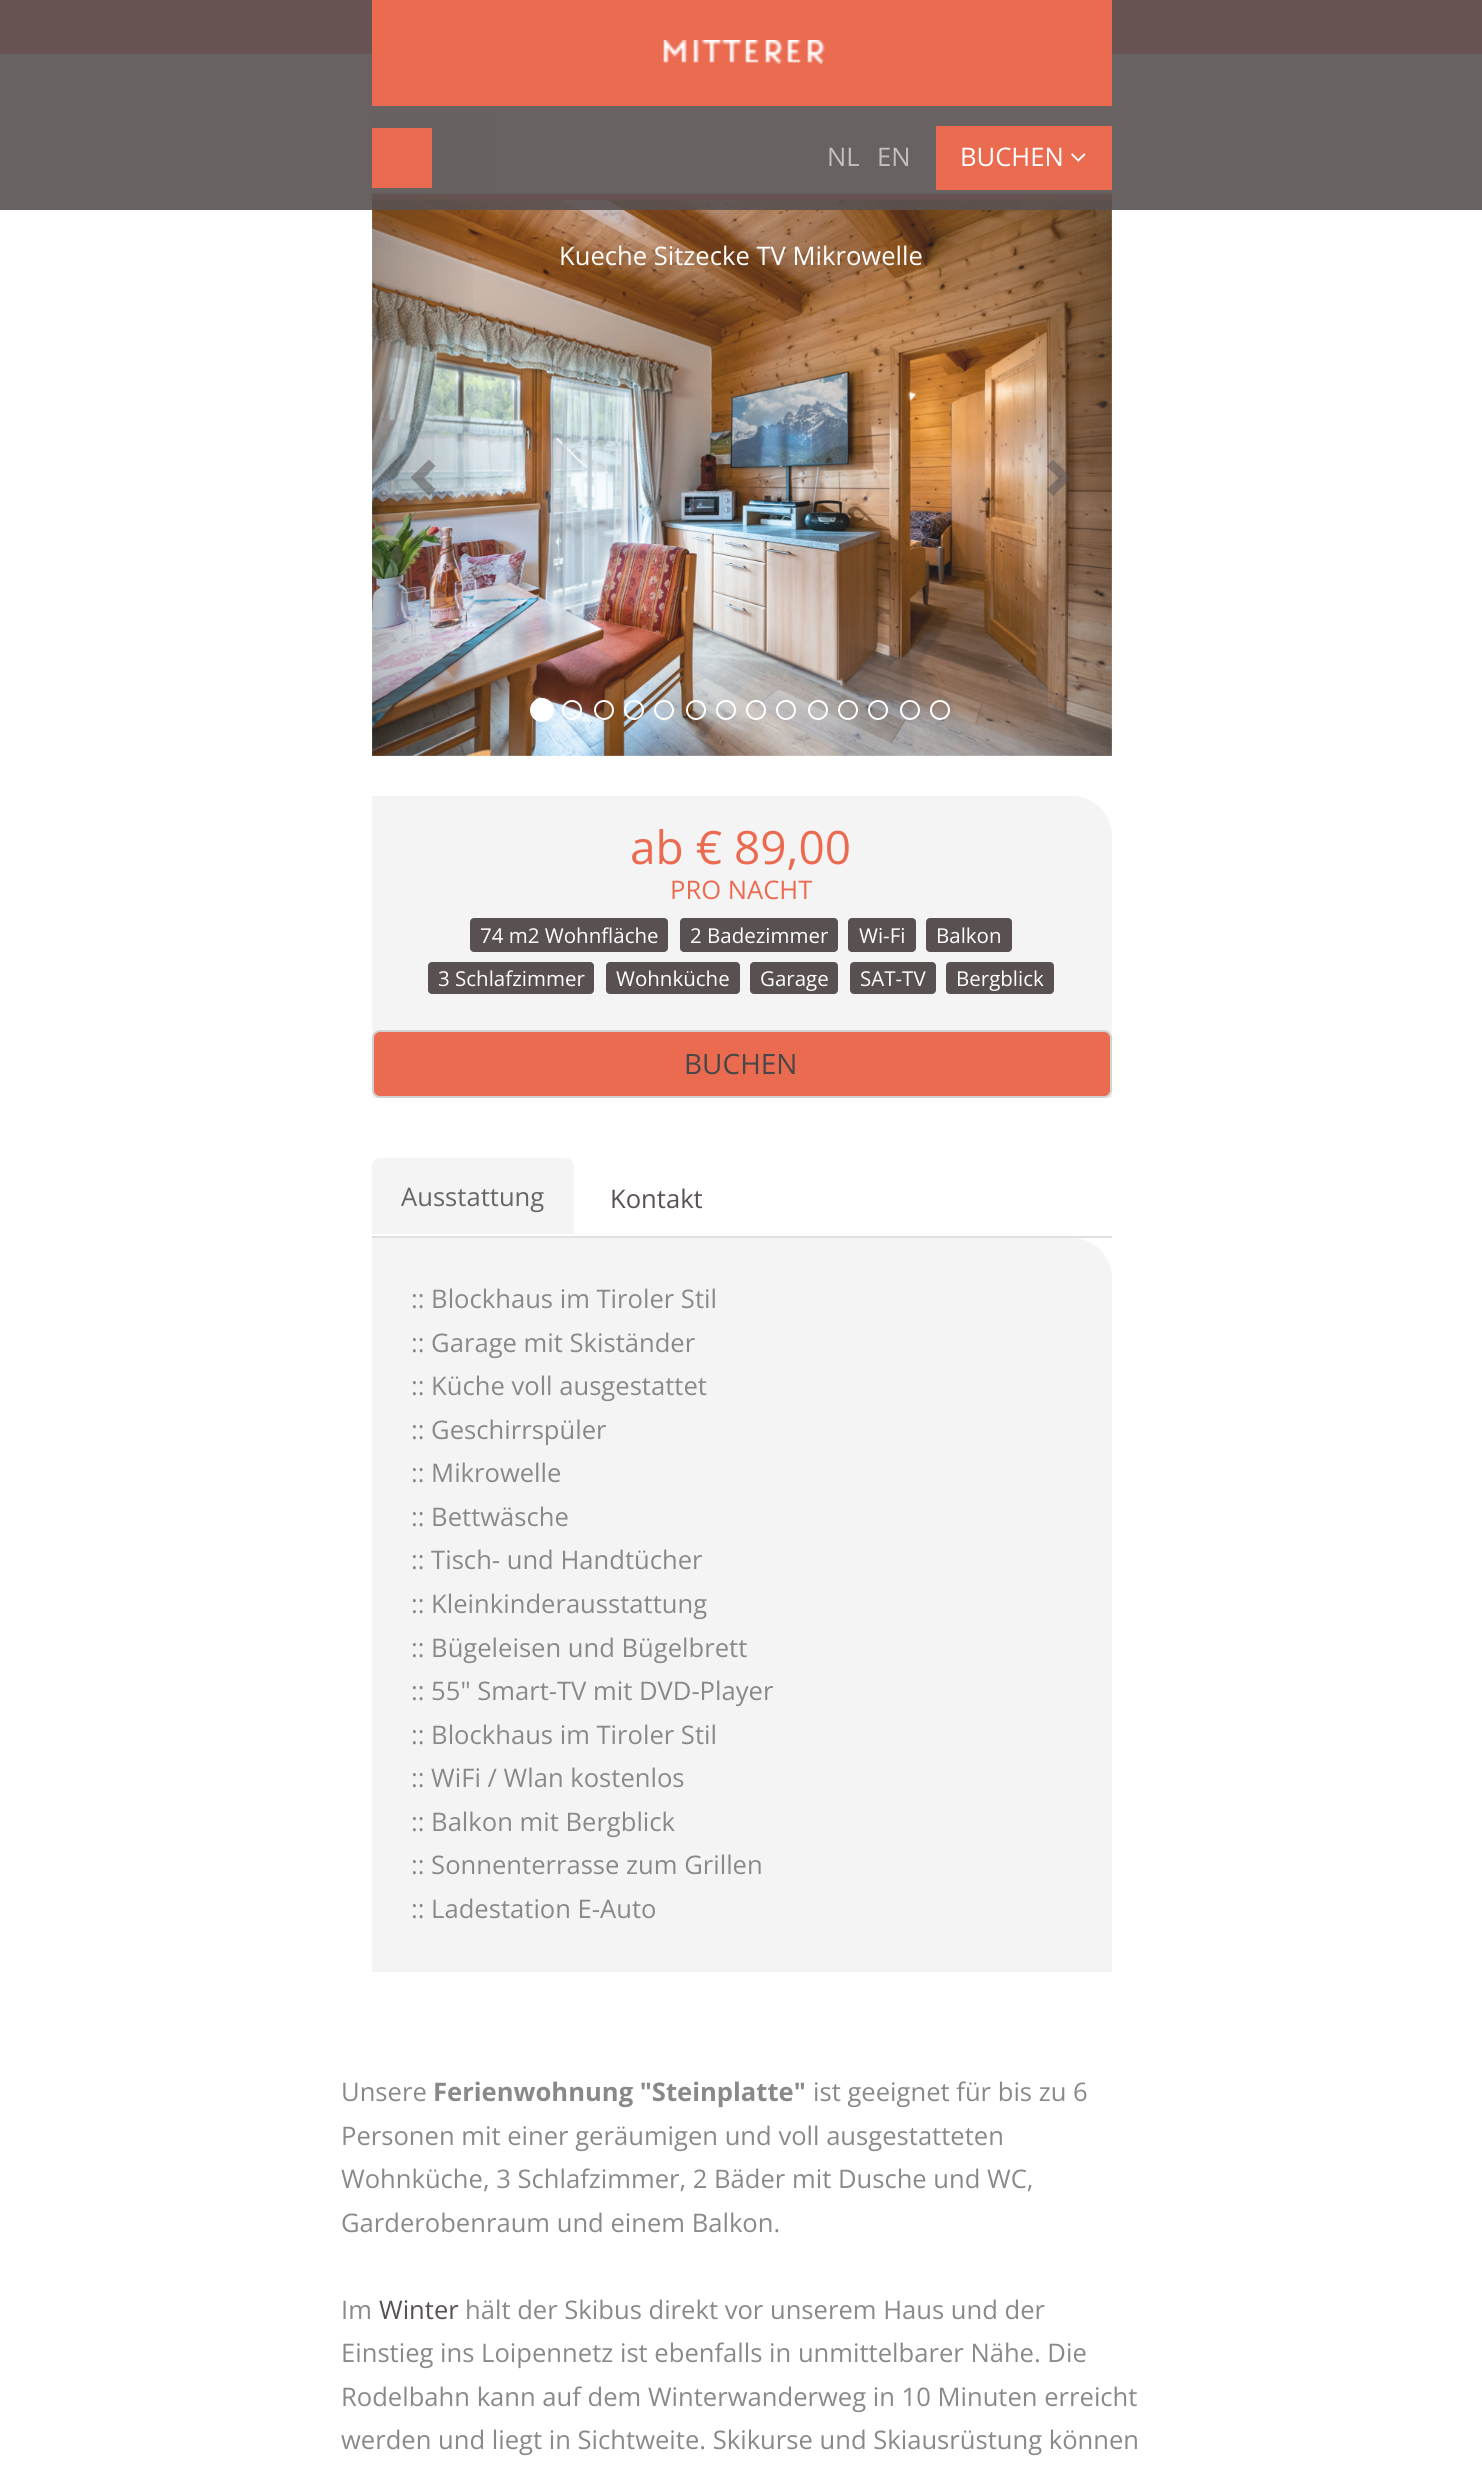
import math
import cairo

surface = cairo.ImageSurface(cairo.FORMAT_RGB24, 1482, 2479)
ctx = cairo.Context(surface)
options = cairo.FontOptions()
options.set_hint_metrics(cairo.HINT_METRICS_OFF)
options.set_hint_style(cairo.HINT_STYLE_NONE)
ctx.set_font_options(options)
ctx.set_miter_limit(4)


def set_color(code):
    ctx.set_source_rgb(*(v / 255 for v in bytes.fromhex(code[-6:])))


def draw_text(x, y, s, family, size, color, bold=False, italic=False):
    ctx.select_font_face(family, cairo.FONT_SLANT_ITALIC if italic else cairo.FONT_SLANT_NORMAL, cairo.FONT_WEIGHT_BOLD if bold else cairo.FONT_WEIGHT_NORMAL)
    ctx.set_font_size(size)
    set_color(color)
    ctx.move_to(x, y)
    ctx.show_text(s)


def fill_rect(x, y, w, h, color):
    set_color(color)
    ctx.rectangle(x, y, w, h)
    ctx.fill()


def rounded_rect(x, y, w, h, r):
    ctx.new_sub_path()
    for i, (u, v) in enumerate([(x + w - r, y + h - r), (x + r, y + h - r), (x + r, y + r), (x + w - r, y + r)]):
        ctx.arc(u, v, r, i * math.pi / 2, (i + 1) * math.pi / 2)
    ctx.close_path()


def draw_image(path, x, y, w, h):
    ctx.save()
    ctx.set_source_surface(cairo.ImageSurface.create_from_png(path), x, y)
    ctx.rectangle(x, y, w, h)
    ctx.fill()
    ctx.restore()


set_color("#ffffff")
ctx.paint()
fill_rect(0, 0, 1482, 54, "#eb6b51")
fill_rect(372, 192, 740, 2, "#e0e0e0")
set_color("#f4f4f4")
ctx.new_path()
ctx.move_to(380, 114)
ctx.line_to(488, 114)
ctx.curve_to(492.5, 114, 496, 117.5, 496, 122)
ctx.line_to(496, 190)
ctx.line_to(372, 190)
ctx.line_to(372, 122)
ctx.curve_to(372, 117.5, 375.5, 114, 380, 114)
ctx.close_path()
ctx.fill()
fill_rect(372, 194, 740, 6, "#eb6b51")
draw_image("assets/img3.png", 372, 200, 740, 556)
gradient = cairo.LinearGradient(372, 475, 482, 475)
gradient.add_color_stop_rgba(0, 0.102, 0.102, 0.102, 0.25)
gradient.add_color_stop_rgba(1, 0.102, 0.102, 0.102, 0)
ctx.set_source(gradient)
ctx.rectangle(372, 194, 101, 562)
ctx.fill()
gradient = cairo.LinearGradient(1000, 475, 1112, 475)
gradient.add_color_stop_rgba(0, 0.102, 0.102, 0.102, 0)
gradient.add_color_stop_rgba(1, 0.102, 0.102, 0.102, 0.25)
ctx.set_source(gradient)
ctx.rectangle(1010, 194, 102, 562)
ctx.fill()
ctx.set_source_rgba(0.349, 0.318, 0.318, 0.9)
ctx.rectangle(0, 0, 1482, 210)
ctx.fill()
fill_rect(372, 0, 740, 106, "#eb6b51")
draw_image("assets/img1.png", 663, 40, 162, 24)
fill_rect(372, 128, 60, 60, "#eb6b51")
draw_text(827, 166, "NL", "Open Sans", 25.6, "#c0c0c0")
draw_text(877, 166, "EN", "Open Sans", 25.6, "#c0c0c0")
fill_rect(936, 126, 176, 64, "#eb6b51")
draw_text(960, 166, "BUCHEN", "Open Sans", 25.6, "#ffffff")
draw_image("assets/img2.png", 1071, 153, 15, 9)
ctx.set_source_rgba(0.349, 0.318, 0.318, 0.5)
ctx.new_path()
ctx.move_to(435.5, 466)
ctx.line_to(424, 478)
ctx.line_to(435.5, 489.5)
ctx.line_to(429, 496)
ctx.line_to(410.5, 477.5)
ctx.line_to(429, 459.5)
ctx.close_path()
ctx.fill()
draw_text(559, 265, "Kueche Sitzecke TV Mikrowelle", "Open Sans", 25.6, "#ffffff")
ctx.set_source_rgba(0.349, 0.318, 0.318, 0.5)
ctx.new_path()
ctx.move_to(1071.5, 478)
ctx.line_to(1053, 496)
ctx.line_to(1046.5, 489.5)
ctx.line_to(1058.5, 478)
ctx.line_to(1046.5, 466)
ctx.line_to(1053, 459.5)
ctx.close_path()
ctx.fill()
set_color("#ffffff")
ctx.arc(542, 710, 11, 0, 2 * math.pi)
ctx.fill_preserve()
ctx.stroke()
ctx.arc(572, 710, 9, 0, 2 * math.pi)
ctx.stroke()
ctx.arc(604, 710, 9, 0, 2 * math.pi)
ctx.stroke()
ctx.arc(634, 710, 9, 0, 2 * math.pi)
ctx.stroke()
ctx.arc(664, 710, 9, 0, 2 * math.pi)
ctx.stroke()
ctx.arc(696, 710, 9, 0, 2 * math.pi)
ctx.stroke()
ctx.arc(726, 710, 9, 0, 2 * math.pi)
ctx.stroke()
ctx.arc(756, 710, 9, 0, 2 * math.pi)
ctx.stroke()
ctx.arc(786, 710, 9, 0, 2 * math.pi)
ctx.stroke()
ctx.arc(818, 710, 9, 0, 2 * math.pi)
ctx.stroke()
ctx.arc(848, 710, 9, 0, 2 * math.pi)
ctx.stroke()
ctx.arc(878, 710, 9, 0, 2 * math.pi)
ctx.stroke()
ctx.arc(910, 710, 9, 0, 2 * math.pi)
ctx.stroke()
ctx.arc(940, 710, 9, 0, 2 * math.pi)
ctx.stroke()
set_color("#f4f4f4")
ctx.new_path()
ctx.move_to(372, 796)
ctx.line_to(1072, 796)
ctx.curve_to(1094, 796, 1112, 814, 1112, 836)
ctx.line_to(1112, 1098)
ctx.line_to(372, 1098)
ctx.close_path()
ctx.fill()
draw_text(630, 864, "ab € 89,00", "Open Sans", 46, "#eb6b51")
draw_text(670, 899, "PRO NACHT", "Open Sans", 25.6, "#eb6b51")
set_color("#595151")
rounded_rect(470, 918, 198, 34, 4)
ctx.fill()
draw_text(480, 943, "74 m2 Wohnfläche", "Open Sans", 20.5, "#ffffff")
set_color("#595151")
rounded_rect(680, 918, 158, 34, 4)
ctx.fill()
draw_text(690, 943, "2 Badezimmer", "Open Sans", 20.5, "#ffffff")
set_color("#595151")
rounded_rect(848, 918, 68, 34, 4)
ctx.fill()
draw_text(859, 943, "Wi-Fi", "Open Sans", 20.5, "#ffffff")
set_color("#595151")
rounded_rect(926, 918, 86, 34, 4)
ctx.fill()
draw_text(936, 943, "Balkon", "Open Sans", 20.5, "#ffffff")
set_color("#595151")
rounded_rect(428, 962, 166, 32, 4)
ctx.fill()
draw_text(438, 986, "3 Schlafzimmer", "Open Sans", 20.5, "#ffffff")
set_color("#595151")
rounded_rect(606, 962, 134, 32, 4)
ctx.fill()
draw_text(616, 986, "Wohnküche", "Open Sans", 20.5, "#ffffff")
set_color("#595151")
rounded_rect(750, 962, 88, 32, 4)
ctx.fill()
draw_text(760, 986, "Garage", "Open Sans", 20.5, "#ffffff")
set_color("#595151")
rounded_rect(850, 962, 86, 32, 4)
ctx.fill()
draw_text(860, 986, "SAT-TV", "Open Sans", 20.5, "#ffffff")
set_color("#595151")
rounded_rect(946, 962, 108, 32, 4)
ctx.fill()
draw_text(956, 986, "Bergblick", "Open Sans", 20.5, "#ffffff")
set_color("#eb6b51")
rounded_rect(373, 1031, 738, 66, 7)
ctx.fill_preserve()
set_color("#d1d1d1")
ctx.stroke()
draw_text(684, 1074, "BUCHEN", "Open Sans", 28, "#474747")
fill_rect(372, 1236, 740, 2, "#e0e0e0")
set_color("#f4f4f4")
ctx.new_path()
ctx.move_to(380, 1158)
ctx.line_to(566, 1158)
ctx.curve_to(570.5, 1158, 574, 1161.5, 574, 1166)
ctx.line_to(574, 1234)
ctx.line_to(372, 1234)
ctx.line_to(372, 1166)
ctx.curve_to(372, 1161.5, 375.5, 1158, 380, 1158)
ctx.close_path()
ctx.fill()
draw_text(401, 1206, "Ausstattung", "Open Sans", 25.6, "#666666")
draw_text(610, 1208, "Kontakt", "Open Sans", 25.6, "#595151")
set_color("#f4f4f4")
ctx.new_path()
ctx.move_to(372, 1238)
ctx.line_to(1072, 1238)
ctx.curve_to(1094, 1238, 1112, 1256, 1112, 1278)
ctx.line_to(1112, 1972)
ctx.line_to(372, 1972)
ctx.close_path()
ctx.fill()
draw_text(411, 1308, ":: Blockhaus im Tiroler Stil", "Open Sans", 25.6, "#898989")
draw_text(411, 1352, ":: Garage mit Skiständer", "Open Sans", 25.6, "#898989")
draw_text(411, 1395, ":: Küche voll ausgestattet", "Open Sans", 25.6, "#898989")
draw_text(411, 1439, ":: Geschirrspüler", "Open Sans", 25.6, "#898989")
draw_text(411, 1482, ":: Mikrowelle", "Open Sans", 25.6, "#898989")
draw_text(411, 1526, ":: Bettwäsche", "Open Sans", 25.6, "#898989")
draw_text(411, 1569, ":: Tisch- und Handtücher", "Open Sans", 25.6, "#898989")
draw_text(411, 1613, ":: Kleinkinderausstattung", "Open Sans", 25.6, "#898989")
draw_text(411, 1657, ":: Bügeleisen und Bügelbrett", "Open Sans", 25.6, "#898989")
draw_text(411, 1700, ":: 55\" Smart-TV mit DVD-Player", "Open Sans", 25.6, "#898989")
draw_text(411, 1744, ":: Blockhaus im Tiroler Stil", "Open Sans", 25.6, "#898989")
draw_text(411, 1787, ":: WiFi / Wlan kostenlos", "Open Sans", 25.6, "#898989")
draw_text(411, 1831, ":: Balkon mit Bergblick", "Open Sans", 25.6, "#898989")
draw_text(411, 1874, ":: Sonnenterrasse zum Grillen", "Open Sans", 25.6, "#898989")
draw_text(411, 1918, ":: Ladestation E-Auto", "Open Sans", 25.6, "#898989")
draw_text(341, 2101, "Unsere", "Open Sans", 25.6, "#898989")
draw_text(433, 2101, "Ferienwohnung \"Steinplatte\"", "Open Sans", 25.6, "#898989", bold=True)
draw_text(813, 2101, "ist geeignet für bis zu 6", "Open Sans", 25.6, "#898989")
draw_text(341, 2145, "Personen mit einer geräumigen und voll ausgestatteten", "Open Sans", 25.6, "#898989")
draw_text(341, 2188, "Wohnküche, 3 Schlafzimmer, 2 Bäder mit Dusche und WC,", "Open Sans", 25.6, "#898989")
draw_text(341, 2232, "Garderobenraum und einem Balkon.", "Open Sans", 25.6, "#898989")
draw_text(341, 2319, "Im", "Open Sans", 25.6, "#898989")
draw_text(379, 2319, "Winter", "Open Sans", 25.6, "#595151")
draw_text(465, 2319, "hält der Skibus direkt vor unserem Haus und der", "Open Sans", 25.6, "#898989")
draw_text(341, 2362, "Einstieg ins Loipennetz ist ebenfalls in unmittelbarer Nähe. Die", "Open Sans", 25.6, "#898989")
draw_text(341, 2406, "Rodelbahn kann auf dem Winterwanderweg in 10 Minuten erreicht", "Open Sans", 25.6, "#898989")
draw_text(341, 2449, "werden und liegt in Sichtweite. Skikurse und Skiausrüstung können", "Open Sans", 25.6, "#898989")
surface.write_to_png("output.png")
